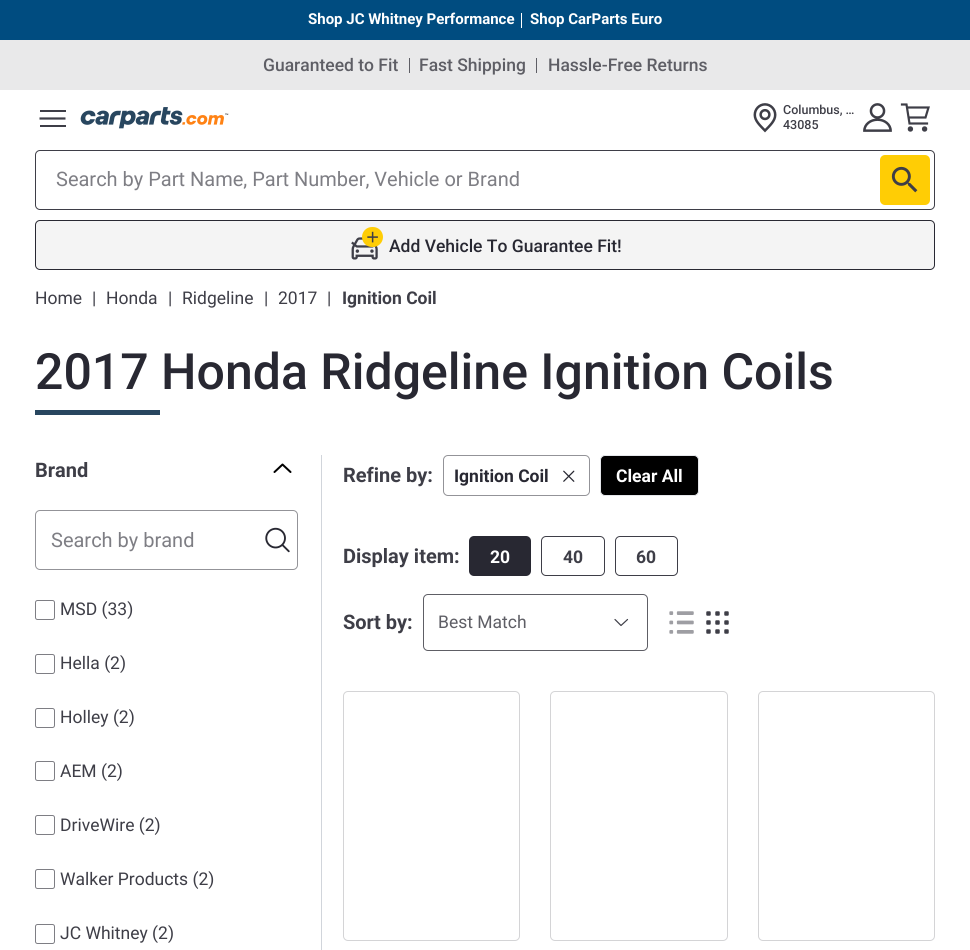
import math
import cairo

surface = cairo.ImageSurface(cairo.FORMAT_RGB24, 970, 950)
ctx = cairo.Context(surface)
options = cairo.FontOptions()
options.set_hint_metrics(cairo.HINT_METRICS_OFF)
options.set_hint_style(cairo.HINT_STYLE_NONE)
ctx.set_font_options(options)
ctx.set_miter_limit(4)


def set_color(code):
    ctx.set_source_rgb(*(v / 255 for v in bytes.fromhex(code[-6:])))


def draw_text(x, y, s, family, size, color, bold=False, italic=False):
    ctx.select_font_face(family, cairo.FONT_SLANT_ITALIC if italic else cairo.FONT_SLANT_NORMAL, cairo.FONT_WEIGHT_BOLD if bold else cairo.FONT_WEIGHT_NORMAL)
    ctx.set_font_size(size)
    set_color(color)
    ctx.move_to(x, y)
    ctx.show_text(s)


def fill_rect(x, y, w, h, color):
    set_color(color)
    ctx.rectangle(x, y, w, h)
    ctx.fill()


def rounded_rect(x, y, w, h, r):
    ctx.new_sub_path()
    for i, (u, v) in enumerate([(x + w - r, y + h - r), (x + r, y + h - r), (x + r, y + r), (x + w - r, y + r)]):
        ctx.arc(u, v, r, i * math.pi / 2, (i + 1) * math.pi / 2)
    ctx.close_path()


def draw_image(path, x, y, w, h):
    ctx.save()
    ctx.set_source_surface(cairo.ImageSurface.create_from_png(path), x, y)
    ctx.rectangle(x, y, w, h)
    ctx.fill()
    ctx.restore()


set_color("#ffffff")
ctx.paint()
fill_rect(0, 40, 970, 50, "#e9e9ea")
fill_rect(0, 0, 970, 40, "#004c80")
draw_text(308, 24, "Shop JC Whitney Performance", "Roboto", 15, "#ffffff", bold=True)
fill_rect(521, 13, 1, 15, "#ffffff")
draw_text(530, 24, "Shop CarParts Euro", "Roboto", 15, "#ffffff", bold=True)
draw_text(263, 71, "Guaranteed to Fit", "Roboto Medium", 17.5, "#5e5e65")
fill_rect(409, 58, 1, 15, "#5e5e65")
draw_text(419, 71, "Fast Shipping", "Roboto Medium", 17.5, "#5e5e65")
fill_rect(536, 58, 1, 15, "#5e5e65")
draw_text(548, 71, "Hassle-Free Returns", "Roboto Medium", 17.5, "#5e5e65")
fill_rect(40, 110, 26, 2, "#3e3e47")
ctx.new_path()
ctx.move_to(39.5, 118.5)
ctx.line_to(65.5, 118.5)
ctx.set_line_width(2.2)
ctx.stroke()
fill_rect(40, 125, 26, 2, "#3e3e47")
draw_image("assets/img1.png", 80, 107, 149, 22)
draw_text(783, 129, "43085", "Roboto Medium", 12.5, "#3e3e47")
draw_image("assets/img2.png", 753, 103, 30, 30)
draw_text(783, 114, "Columbus, …", "Roboto Medium", 12.5, "#3e3e47")
draw_image("assets/img3.png", 863, 103, 29, 29)
ctx.new_path()
ctx.move_to(907.5, 107.5)
ctx.line_to(928.5, 107.5)
ctx.line_to(925.5, 117.5)
ctx.line_to(909, 117.5)
ctx.move_to(927, 123.5)
ctx.line_to(909.5, 123.5)
ctx.line_to(906.5, 104.5)
ctx.line_to(902, 104.5)
ctx.set_line_cap(cairo.LINE_CAP_SQUARE)
ctx.stroke()
ctx.arc(910.4, 129, 2.7, 0, 2 * math.pi)
ctx.fill()
ctx.arc(924.6, 129, 2.7, 0, 2 * math.pi)
ctx.fill()
rounded_rect(35.5, 150.5, 899, 59, 4.5)
ctx.set_line_width(1)
ctx.set_line_cap(cairo.LINE_CAP_BUTT)
ctx.stroke()
draw_text(56, 186, "Search by Part Name, Part Number, Vehicle or Brand", "Roboto", 20, "#7e7e84")
set_color("#ffcd05")
rounded_rect(880, 155, 50, 50, 5)
ctx.fill()
draw_image("assets/img4.png", 891, 166, 27, 27)
set_color("#f4f4f4")
rounded_rect(35.5, 220.5, 899, 49, 4.5)
ctx.fill_preserve()
set_color("#282832")
ctx.stroke()
draw_image("assets/img5.png", 351, 227, 32, 33)
draw_text(389, 252, "Add Vehicle To Guarantee Fit!", "Roboto Medium", 17.5, "#282832")
draw_text(35, 304, "Home", "Roboto", 17.5, "#3e3e47")
draw_text(92, 304, "|", "Roboto", 17.5, "#3e3e47")
draw_text(106, 304, "Honda", "Roboto", 17.5, "#3e3e47")
draw_text(168, 304, "|", "Roboto", 17.5, "#3e3e47")
draw_text(182, 304, "Ridgeline", "Roboto", 17.5, "#3e3e47")
draw_text(264, 304, "|", "Roboto", 17.5, "#3e3e47")
draw_text(278, 304, "2017", "Roboto", 17.5, "#3e3e47")
draw_text(327, 304, "|", "Roboto", 17.5, "#3e3e47")
draw_text(342, 304, "Ignition Coil", "Roboto", 17.5, "#3e3e47", bold=True)
draw_text(35, 389, "2017 Honda Ridgeline Ignition Coils", "Roboto Medium", 50, "#282832")
fill_rect(35, 410, 125, 5, "#28465f")
fill_rect(321, 455, 1, 495, "#d1d5db")
draw_text(35, 477, "Brand", "Roboto", 20, "#3e3e47", bold=True)
draw_image("assets/img6.png", 273, 463, 19, 10)
rounded_rect(35.5, 510.5, 262, 59, 4.5)
set_color("#939398")
ctx.stroke()
draw_text(51, 547, "Search by brand", "Roboto", 20, "#7e7e84")
draw_image("assets/img7.png", 265, 527, 25, 26)
rounded_rect(35.5, 600.5, 19, 19, 2)
ctx.stroke()
draw_text(60, 615, "MSD (33)", "Roboto", 17.5, "#3e3e47")
rounded_rect(35.5, 654.5, 19, 19, 2)
set_color("#7e7e84")
ctx.stroke()
draw_text(60, 669, "Hella (2)", "Roboto", 17.5, "#3e3e47")
rounded_rect(35.5, 708.5, 19, 19, 2)
set_color("#7e7e84")
ctx.stroke()
draw_text(60, 723, "Holley (2)", "Roboto", 17.5, "#3e3e47")
rounded_rect(35.5, 761.5, 19, 19, 2)
set_color("#7e7e84")
ctx.stroke()
draw_text(60, 777, "AEM (2)", "Roboto", 17.5, "#3e3e47")
rounded_rect(35.5, 815.5, 19, 19, 2)
set_color("#7e7e84")
ctx.stroke()
draw_text(60, 831, "DriveWire (2)", "Roboto", 17.5, "#3e3e47")
rounded_rect(35.5, 869.5, 19, 19, 2)
set_color("#7e7e84")
ctx.stroke()
draw_text(60, 885, "Walker Products (2)", "Roboto", 17.5, "#3e3e47")
rounded_rect(35.5, 924.5, 19, 19, 2)
set_color("#7e7e84")
ctx.stroke()
draw_text(60, 939, "JC Whitney (2)", "Roboto", 17.5, "#3e3e47")
draw_text(343, 482, "Refine by:", "Roboto", 20, "#3e3e47", bold=True)
rounded_rect(443.5, 455.5, 146, 40, 4.5)
set_color("#939398")
ctx.stroke()
draw_text(454, 482, "Ignition Coil", "Roboto", 17.5, "#282832", bold=True)
draw_image("assets/img8.png", 563, 470, 12, 12)
set_color("#000000")
rounded_rect(600.5, 455.5, 98, 40, 4.5)
ctx.fill_preserve()
set_color("#e5e7eb")
ctx.stroke()
draw_text(616, 482, "Clear All", "Roboto", 17.5, "#ffffff", bold=True)
draw_text(343, 563, "Display item:", "Roboto", 20, "#3e3e47", bold=True)
set_color("#282832")
rounded_rect(469, 536, 62, 40, 5)
ctx.fill()
draw_text(490, 563, "20", "Roboto", 17.5, "#ffffff", bold=True)
rounded_rect(541.5, 536.5, 63, 39, 4.5)
set_color("#3e3e47")
ctx.stroke()
draw_text(563, 563, "40", "Roboto", 17.5, "#3e3e47", bold=True)
rounded_rect(615.5, 536.5, 62, 39, 4.5)
ctx.stroke()
draw_text(636, 563, "60", "Roboto", 17.5, "#3e3e47", bold=True)
draw_text(343, 629, "Sort by:", "Roboto", 20, "#3e3e47", bold=True)
rounded_rect(423.5, 594.5, 224, 56, 4.5)
set_color("#5e5e65")
ctx.stroke()
draw_text(438, 628, "Best Match", "Roboto", 17.5, "#5e5e65")
ctx.new_path()
ctx.move_to(627.5, 619.5)
ctx.line_to(621, 625.5)
ctx.line_to(615, 619.5)
set_color("#3e3e47")
ctx.set_line_width(1.2)
ctx.set_line_cap(cairo.LINE_CAP_ROUND)
ctx.set_line_join(cairo.LINE_JOIN_ROUND)
ctx.stroke()
draw_image("assets/img9.png", 669, 611, 25, 23)
draw_image("assets/img10.png", 706, 611, 23, 23)
rounded_rect(343.5, 691.5, 176, 249, 4.5)
set_color("#d4d4d6")
ctx.set_line_width(1)
ctx.set_line_cap(cairo.LINE_CAP_BUTT)
ctx.set_line_join(cairo.LINE_JOIN_MITER)
ctx.stroke()
rounded_rect(550.5, 691.5, 177, 249, 4.5)
ctx.stroke()
rounded_rect(758.5, 691.5, 176, 249, 4.5)
ctx.stroke()
surface.write_to_png("output.png")
